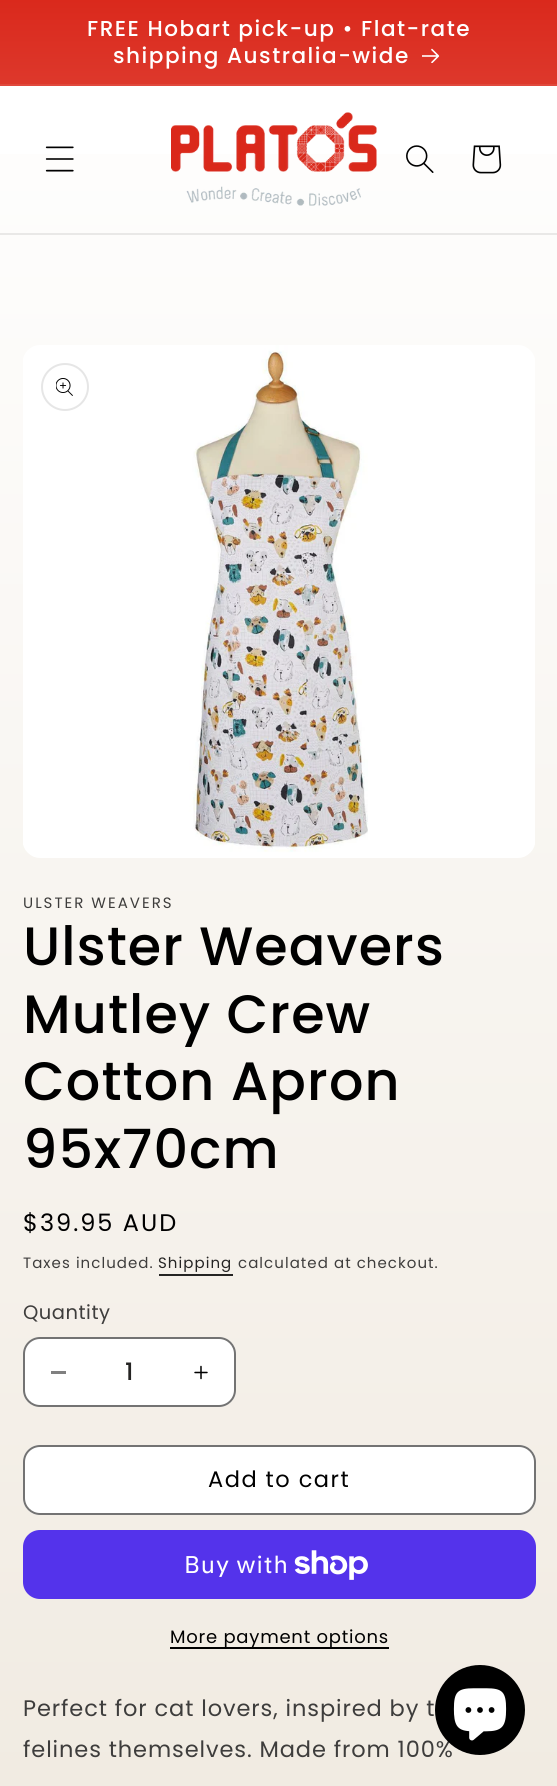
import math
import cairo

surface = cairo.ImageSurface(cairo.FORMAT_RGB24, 557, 1786)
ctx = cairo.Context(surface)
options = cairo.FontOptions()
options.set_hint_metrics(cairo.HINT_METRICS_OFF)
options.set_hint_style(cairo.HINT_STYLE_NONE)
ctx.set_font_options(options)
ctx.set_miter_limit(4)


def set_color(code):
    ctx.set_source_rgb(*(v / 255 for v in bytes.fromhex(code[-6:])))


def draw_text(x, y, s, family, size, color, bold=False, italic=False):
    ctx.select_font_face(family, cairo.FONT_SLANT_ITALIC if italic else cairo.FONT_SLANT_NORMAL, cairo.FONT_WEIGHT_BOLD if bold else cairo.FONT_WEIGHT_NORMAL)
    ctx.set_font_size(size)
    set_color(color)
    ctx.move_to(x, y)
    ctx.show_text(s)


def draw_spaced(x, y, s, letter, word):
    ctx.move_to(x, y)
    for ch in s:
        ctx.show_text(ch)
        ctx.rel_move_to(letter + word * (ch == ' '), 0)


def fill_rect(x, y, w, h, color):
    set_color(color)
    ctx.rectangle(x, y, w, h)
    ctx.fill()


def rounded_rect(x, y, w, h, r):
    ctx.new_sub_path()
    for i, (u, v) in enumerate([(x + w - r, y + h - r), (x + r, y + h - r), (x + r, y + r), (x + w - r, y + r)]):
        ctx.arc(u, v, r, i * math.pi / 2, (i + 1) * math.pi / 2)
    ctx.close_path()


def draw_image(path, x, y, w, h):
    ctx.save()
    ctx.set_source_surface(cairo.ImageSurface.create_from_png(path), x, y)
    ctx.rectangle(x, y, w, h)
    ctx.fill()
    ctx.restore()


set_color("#ffffff")
ctx.paint()
gradient = cairo.LinearGradient(279, 0, 279, 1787)
gradient.add_color_stop_rgba(0, 1, 1, 1, 1)
gradient.add_color_stop_rgba(1, 0.945, 0.922, 0.886, 1)
ctx.set_source(gradient)
ctx.rectangle(0, 154, 557, 107)
ctx.fill()
gradient = cairo.LinearGradient(279, 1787, 279, 0)
gradient.add_color_stop_rgba(0.42, 1, 0.878, 0.855, 1)
gradient.add_color_stop_rgba(1, 0.855, 0.161, 0.11, 1)
gradient.add_color_stop_rgba(1, 0.843, 1, 0.537, 1)
ctx.set_source(gradient)
ctx.rectangle(0, 0, 557, 84)
ctx.fill()
fill_rect(0, 84, 557, 2, "#e0483c")
ctx.select_font_face("Poppins Medium")
ctx.set_font_size(21.6)
set_color("#ffffff")
draw_spaced(87, 36, "FREE Hobart pick-up • Flat-rate", 1.5, 0)
draw_spaced(113, 63, "shipping Australia-wide", 1.5, 0)
draw_image("assets/img1.png", 422, 48, 18, 15)
fill_rect(0, 233, 557, 2, "#e9e8e7")
draw_image("assets/img2.png", 45, 146, 29, 26)
draw_image("assets/img3.png", 171, 112, 206, 94)
draw_image("assets/img4.png", 406, 145, 28, 28)
draw_image("assets/img5.png", 472, 145, 30, 29)
gradient = cairo.LinearGradient(279, 0, 279, 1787)
gradient.add_color_stop_rgba(0, 1, 1, 1, 1)
gradient.add_color_stop_rgba(1, 0.945, 0.922, 0.886, 1)
ctx.set_source(gradient)
ctx.rectangle(0, 261, 557, 1525)
ctx.fill()
draw_image("assets/img6.png", 23, 345, 512, 513)
ctx.arc(65, 387, 23, 0, 2 * math.pi)
set_color("#e6e6e6")
ctx.stroke()
draw_image("assets/img7.png", 56, 378, 17, 18)
ctx.select_font_face("Poppins")
ctx.set_font_size(15)
set_color("#3e3d3c")
draw_spaced(23, 908, "ULSTER WEAVERS", 2, 0)
ctx.select_font_face("Poppins Medium")
ctx.set_font_size(54)
set_color("#000000")
draw_spaced(23, 965, "Ulster Weavers", 1.1, 0)
draw_spaced(23, 1033, "Mutley Crew", 1.1, 0)
draw_spaced(23, 1100, "Cotton Apron", 1.1, 0)
draw_spaced(23, 1168, "95x70cm", 1.1, 0)
ctx.select_font_face("Poppins")
ctx.set_font_size(24)
draw_spaced(23, 1231, "$39.95 AUD", 2, 0)
ctx.set_font_size(15)
set_color("#3e3d3c")
draw_spaced(23, 1268, "Taxes included.", 1.05, 0)
set_color("#252423")
draw_spaced(158, 1268, "Shipping", 1.05, 0)
fill_rect(159, 1274, 74, 2, "#252423")
set_color("#3e3d3c")
draw_spaced(238, 1268, "calculated at checkout.", 1.05, 0)
ctx.set_font_size(19.5)
draw_spaced(23, 1319, "Quantity", 0.5, 0)
set_color("#ffffff")
rounded_rect(23, 1337, 213, 70, 17)
ctx.fill()
fill_rect(51, 1371, 15, 3, "#808080")
draw_image("assets/img8.png", 194, 1365, 14, 15)
rounded_rect(24, 1338, 211, 68, 16)
ctx.set_source_rgba(0, 0, 0, 0.55)
ctx.stroke()
draw_text(125, 1380, "1", "Poppins Medium", 24, "#252423")
set_color("#ffffff")
rounded_rect(23, 1445, 513, 70, 17)
ctx.fill()
rounded_rect(24, 1446, 511, 68, 16)
ctx.stroke()
rounded_rect(24, 1446, 511, 68, 16)
ctx.set_source_rgba(0, 0, 0, 0.55)
ctx.stroke()
ctx.select_font_face("Poppins")
ctx.set_font_size(22.5)
set_color("#000000")
draw_spaced(208, 1487, "Add to cart", 1.5, 0)
set_color("#5433eb")
rounded_rect(23, 1530, 513, 69, 17)
ctx.fill()
ctx.select_font_face("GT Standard")
ctx.set_font_size(24)
set_color("#ffffff")
draw_spaced(184, 1573, "Buy with", 0.9, 0)
draw_image("assets/img9.png", 294, 1550, 74, 30)
fill_rect(170, 1647, 219, 2, "#000000")
ctx.select_font_face("Poppins")
ctx.set_font_size(18)
draw_spaced(170, 1643, "More payment options", 0.75, 0)
ctx.set_font_size(22.5)
set_color("#3e3d3c")
draw_spaced(23, 1716, "Perfect for cat lovers, inspired by t", 0.9, 0)
draw_spaced(23, 1757, "felines themselves. Made from 100%", 0.9, 0)
set_color("#000000")
ctx.new_path()
ctx.arc(480, 1710, 45, 0, 2 * math.pi)
ctx.fill()
draw_image("assets/img10.png", 453, 1688, 54, 53)
surface.write_to_png("output.png")
